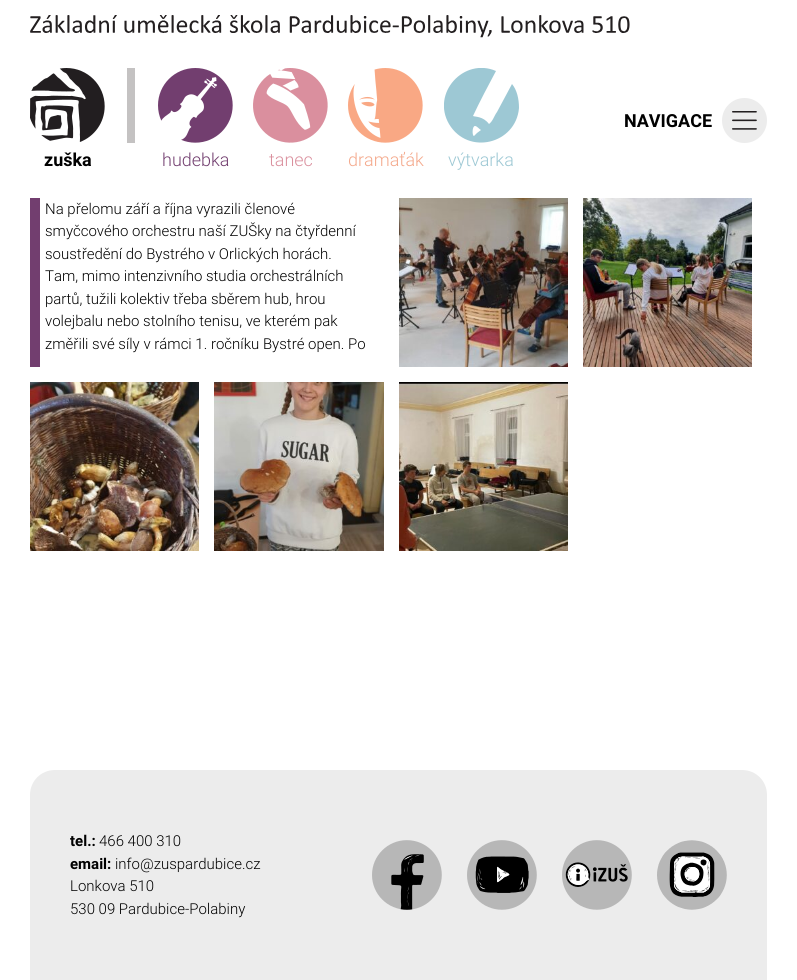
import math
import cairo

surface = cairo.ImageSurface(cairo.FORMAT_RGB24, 797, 980)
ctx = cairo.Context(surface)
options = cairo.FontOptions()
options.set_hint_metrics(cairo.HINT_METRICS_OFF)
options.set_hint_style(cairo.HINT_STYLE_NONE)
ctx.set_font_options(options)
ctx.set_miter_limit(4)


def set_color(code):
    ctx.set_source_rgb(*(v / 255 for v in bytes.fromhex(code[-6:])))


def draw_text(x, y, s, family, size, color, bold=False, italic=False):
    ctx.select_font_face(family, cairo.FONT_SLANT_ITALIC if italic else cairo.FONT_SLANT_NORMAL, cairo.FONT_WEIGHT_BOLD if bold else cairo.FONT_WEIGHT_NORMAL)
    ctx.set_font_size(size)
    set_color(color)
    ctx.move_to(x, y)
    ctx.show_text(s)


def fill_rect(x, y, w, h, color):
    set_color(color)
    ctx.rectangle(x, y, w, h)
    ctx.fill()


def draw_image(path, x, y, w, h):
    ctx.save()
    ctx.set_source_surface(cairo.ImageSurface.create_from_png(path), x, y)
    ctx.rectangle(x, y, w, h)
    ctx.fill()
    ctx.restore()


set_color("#ffffff")
ctx.paint()
draw_image("assets/img1.png", 30, 15, 600, 23)
draw_text(624, 127, "NAVIGACE", "Roboto", 18, "#000000", bold=True)
set_color("#ececec")
ctx.new_path()
ctx.arc(744.5, 120.5, 22.5, 0, 2 * math.pi)
ctx.fill()
draw_image("assets/img2.png", 732, 111, 25, 19)
draw_image("assets/img3.png", 30, 68, 75, 74)
fill_rect(127, 68, 8, 75, "#c4c2c2")
draw_text(44, 166, "zuška", "Roboto", 18, "#000000", bold=True)
draw_image("assets/img4.png", 158, 68, 75, 75)
draw_text(162, 166, "hudebka", "Roboto Light", 18, "#723e6f")
draw_image("assets/img5.png", 253, 68, 75, 75)
draw_text(269, 166, "tanec", "Roboto Light", 18, "#da909e")
draw_image("assets/img6.png", 348, 68, 75, 75)
draw_text(348, 166, "dramaťák", "Roboto Light", 18, "#f4a98c")
ctx.save()
ctx.rectangle(444, 68, 75, 75)
ctx.clip()
set_color("#9dc8d4")
ctx.new_path()
ctx.move_to(449, 124)
ctx.curve_to(468, 156, 516, 144, 519, 108)
ctx.curve_to(519, 99, 517, 90, 512, 84)
ctx.line_to(497, 112)
ctx.curve_to(494, 116, 493, 121, 489, 124)
ctx.curve_to(483, 116, 475, 117, 473, 116)
ctx.curve_to(479, 103, 489, 84, 496, 71)
ctx.curve_to(464, 57, 431, 93, 449, 124)
ctx.move_to(481, 130)
ctx.line_to(477, 133)
ctx.line_to(474, 136)
ctx.curve_to(472, 136, 472, 126, 475, 126)
ctx.curve_to(477, 126, 479, 129, 481, 130)
ctx.fill()
ctx.restore()
draw_text(448, 166, "výtvarka", "Roboto Light", 18, "#9dc8d4")
fill_rect(30, 198, 10, 169, "#723e6f")
draw_text(45, 214, "Na přelomu září a října vyrazili členové", "Roboto Light", 15, "#000000")
draw_text(45, 236, "smyčcového orchestru naší ZUŠky na čtyřdenní", "Roboto Light", 15, "#000000")
draw_text(45, 259, "soustředění do Bystrého v Orlických horách.", "Roboto Light", 15, "#000000")
draw_text(45, 281, "Tam, mimo intenzivního studia orchestrálních", "Roboto Light", 15, "#000000")
draw_text(45, 304, "partů, tužili kolektiv třeba sběrem hub, hrou", "Roboto Light", 15, "#000000")
draw_text(45, 326, "volejbalu nebo stolního tenisu, ve kterém pak", "Roboto Light", 15, "#000000")
draw_text(45, 349, "změřili své síly v rámci 1. ročníku Bystré open. Po", "Roboto Light", 15, "#000000")
draw_image("assets/img7.png", 399, 198, 169, 169)
draw_image("assets/img8.png", 583, 198, 169, 169)
draw_image("assets/img9.png", 30, 382, 169, 169)
draw_image("assets/img10.png", 214, 382, 170, 169)
draw_image("assets/img11.png", 399, 382, 169, 169)
set_color("#ececec")
ctx.new_path()
ctx.move_to(55, 770)
ctx.line_to(742, 770)
ctx.curve_to(756, 770, 767, 781, 767, 795)
ctx.line_to(767, 980)
ctx.line_to(30, 980)
ctx.line_to(30, 795)
ctx.curve_to(30, 781, 41, 770, 55, 770)
ctx.close_path()
ctx.fill()
draw_text(70, 846, "tel.:", "Roboto", 15, "#000000", bold=True)
draw_text(99, 846, "466 400 310", "Roboto Light", 15, "#000000")
draw_text(70, 869, "email:", "Roboto", 15, "#000000", bold=True)
draw_text(115, 869, "info@zuspardubice.cz", "Roboto Light", 15, "#000000")
draw_text(70, 891, "Lonkova 510", "Roboto Light", 15, "#000000")
draw_text(70, 914, "530 09 Pardubice-Polabiny", "Roboto Light", 15, "#000000")
draw_image("assets/img12.png", 372, 840, 70, 70)
draw_image("assets/img13.png", 467, 840, 70, 70)
draw_image("assets/img14.png", 562, 840, 70, 70)
draw_image("assets/img15.png", 657, 840, 70, 70)
surface.write_to_png("output.png")
